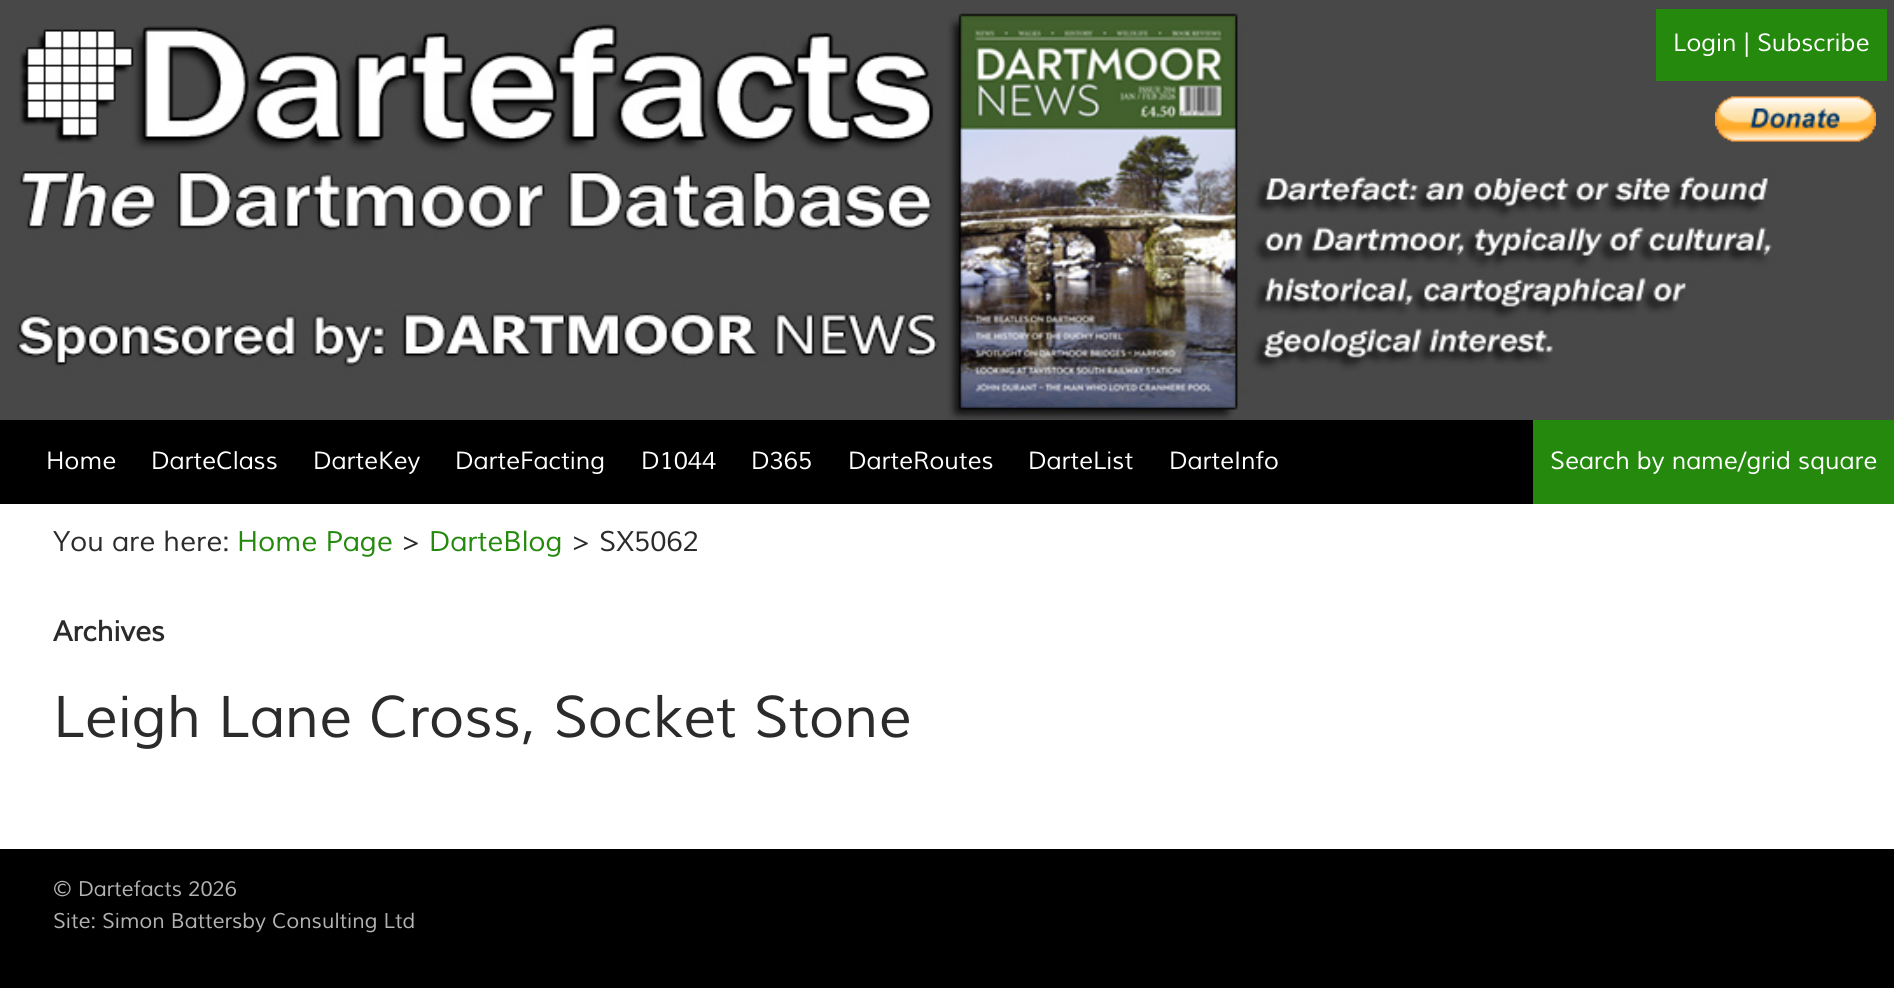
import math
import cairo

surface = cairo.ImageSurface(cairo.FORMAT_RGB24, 1894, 988)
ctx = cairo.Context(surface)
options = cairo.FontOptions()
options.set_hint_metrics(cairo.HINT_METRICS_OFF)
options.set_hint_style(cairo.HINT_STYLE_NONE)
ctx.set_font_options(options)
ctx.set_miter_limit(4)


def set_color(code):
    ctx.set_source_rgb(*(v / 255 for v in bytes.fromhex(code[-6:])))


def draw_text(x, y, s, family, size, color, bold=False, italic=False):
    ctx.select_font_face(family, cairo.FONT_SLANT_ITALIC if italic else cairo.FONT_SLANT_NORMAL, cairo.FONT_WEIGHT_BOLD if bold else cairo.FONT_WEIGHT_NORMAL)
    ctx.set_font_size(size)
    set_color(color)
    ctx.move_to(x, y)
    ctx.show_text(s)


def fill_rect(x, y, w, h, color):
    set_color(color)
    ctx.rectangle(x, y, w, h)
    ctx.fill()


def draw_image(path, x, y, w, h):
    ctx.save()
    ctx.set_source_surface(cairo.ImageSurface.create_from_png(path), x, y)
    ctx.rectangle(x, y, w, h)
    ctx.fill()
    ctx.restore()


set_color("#000000")
ctx.paint()
fill_rect(0, 504, 1894, 345, "#ffffff")
draw_image("assets/img1.png", 0, 0, 1894, 420)
fill_rect(1656, 9, 231, 72, "#24890d")
draw_text(1673, 51, "Login | Subscribe", "Muli", 24.5, "#ffffff", italic=True)
draw_image("assets/img2.png", 1715, 96, 161, 46)
draw_text(46, 469, "Home", "Muli", 24.5, "#ffffff", italic=True)
draw_text(151, 469, "DarteClass", "Muli", 24.5, "#ffffff", italic=True)
draw_text(313, 469, "DarteKey", "Muli", 24.5, "#ffffff", italic=True)
draw_text(455, 469, "DarteFacting", "Muli", 24.5, "#ffffff", italic=True)
draw_text(641, 469, "D1044", "Muli", 24.5, "#ffffff", italic=True)
draw_text(751, 469, "D365", "Muli", 24.5, "#ffffff", italic=True)
draw_text(848, 469, "DarteRoutes", "Muli", 24.5, "#ffffff", italic=True)
draw_text(1028, 469, "DarteList", "Muli", 24.5, "#ffffff", italic=True)
draw_text(1169, 469, "DarteInfo", "Muli", 24.5, "#ffffff", italic=True)
fill_rect(1533, 420, 361, 84, "#24890d")
draw_text(1550, 469, "Search by name/grid square", "Muli", 24.5, "#ffffff", italic=True)
draw_text(53, 551, "You are here:", "Muli", 28, "#2b2b2b", italic=True)
draw_text(237, 551, "Home Page", "Muli", 28, "#24890d", italic=True)
draw_text(401, 551, ">", "Muli", 28, "#2b2b2b", italic=True)
draw_text(429, 551, "DarteBlog", "Muli", 28, "#24890d", italic=True)
draw_text(571, 551, "> SX5062", "Muli", 28, "#2b2b2b", italic=True)
draw_text(53, 641, "Archives", "Muli", 28, "#2b2b2b", bold=True, italic=True)
draw_text(53, 737, "Leigh Lane Cross, Socket Stone", "Muli", 57.75, "#2b2b2b", italic=True)
draw_text(53, 896, "© Dartefacts 2026", "Muli", 21, "#b3b3b3", italic=True)
draw_text(53, 928, "Site: Simon Battersby Consulting Ltd", "Muli", 21, "#b3b3b3", italic=True)
surface.write_to_png("output.png")
